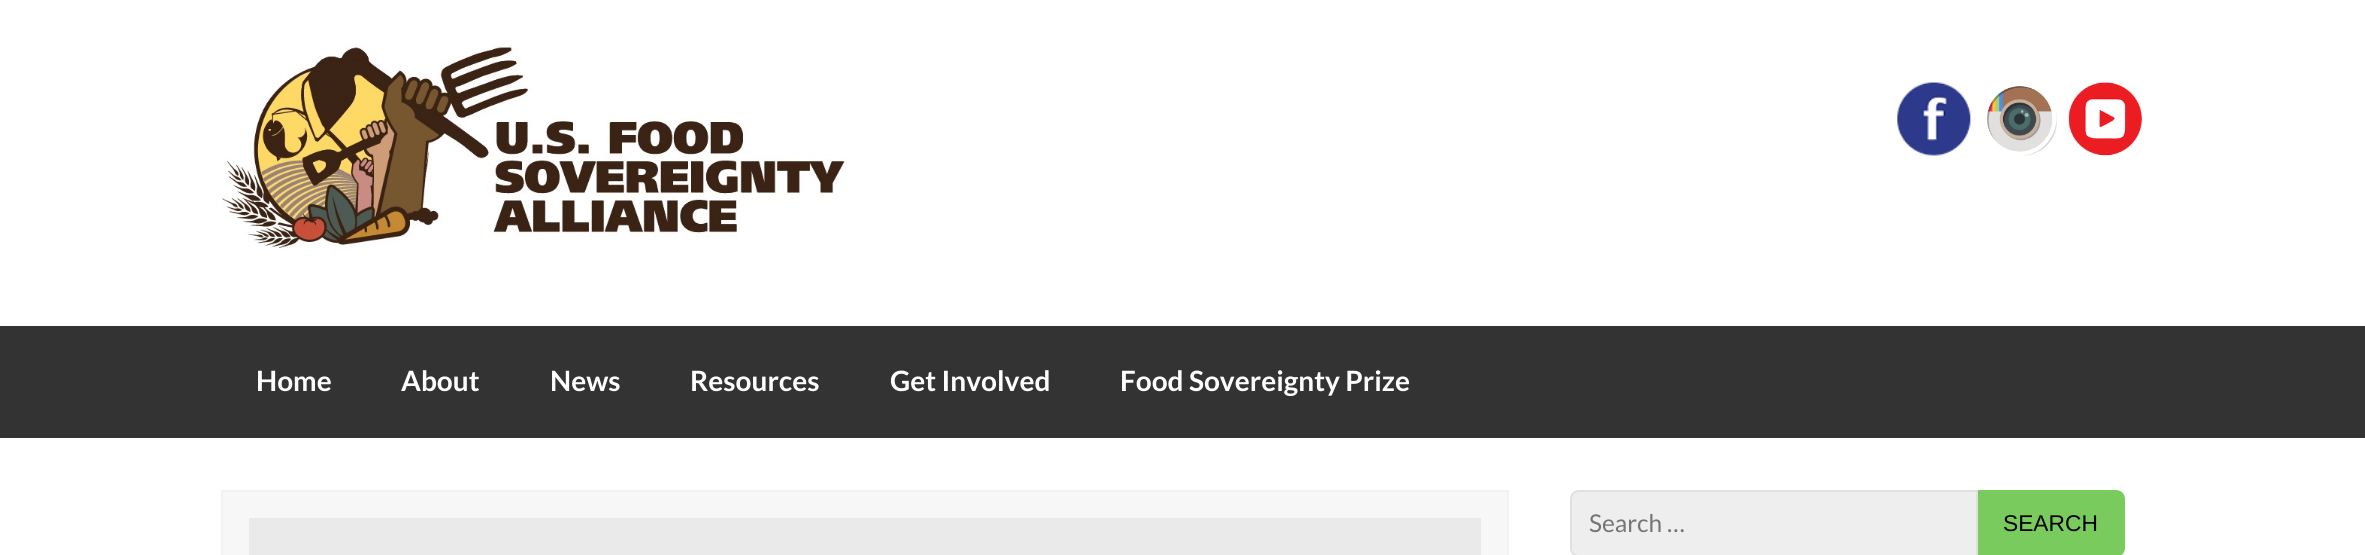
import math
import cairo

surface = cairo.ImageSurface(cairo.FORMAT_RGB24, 2365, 555)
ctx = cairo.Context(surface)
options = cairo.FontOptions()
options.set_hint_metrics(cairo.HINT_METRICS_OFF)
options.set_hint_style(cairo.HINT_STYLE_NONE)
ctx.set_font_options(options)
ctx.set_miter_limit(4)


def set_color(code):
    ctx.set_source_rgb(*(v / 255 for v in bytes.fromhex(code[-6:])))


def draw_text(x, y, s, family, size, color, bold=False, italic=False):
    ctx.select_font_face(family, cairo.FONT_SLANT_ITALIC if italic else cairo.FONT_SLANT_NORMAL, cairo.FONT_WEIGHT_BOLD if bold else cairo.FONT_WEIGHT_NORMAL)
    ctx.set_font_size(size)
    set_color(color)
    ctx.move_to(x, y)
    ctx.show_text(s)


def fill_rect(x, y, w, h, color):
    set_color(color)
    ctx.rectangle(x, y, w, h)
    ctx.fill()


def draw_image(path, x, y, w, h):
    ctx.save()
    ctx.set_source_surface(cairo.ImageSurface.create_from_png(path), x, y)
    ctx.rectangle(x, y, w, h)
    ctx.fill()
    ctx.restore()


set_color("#ffffff")
ctx.paint()
draw_image("assets/img1.png", 221, 44, 625, 205)
draw_image("assets/img2.png", 1897, 82, 74, 74)
draw_image("assets/img3.png", 1987, 86, 70, 70)
draw_image("assets/img4.png", 2068, 82, 74, 74)
fill_rect(0, 326, 2365, 112, "#333333")
draw_text(256, 391, "Home", "Lato", 28, "#ffffff", bold=True)
draw_text(401, 391, "About", "Lato", 28, "#ffffff", bold=True)
draw_text(550, 391, "News", "Lato", 28, "#ffffff", bold=True)
draw_text(690, 391, "Resources", "Lato", 28, "#ffffff", bold=True)
draw_text(890, 391, "Get Involved", "Lato", 28, "#ffffff", bold=True)
draw_text(1120, 391, "Food Sovereignty Prize", "Lato", 28, "#ffffff", bold=True)
set_color("#f7f7f7")
ctx.rectangle(222, 491, 1286, 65)
ctx.fill_preserve()
set_color("#f2f2f2")
ctx.stroke()
fill_rect(249, 518, 1232, 37, "#eaeaea")
set_color("#eeeeee")
ctx.new_path()
ctx.move_to(1579, 491)
ctx.line_to(1977, 491)
ctx.line_to(1977, 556)
ctx.line_to(1579, 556)
ctx.curve_to(1574.5, 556, 1571, 552.5, 1571, 548)
ctx.line_to(1571, 499)
ctx.curve_to(1571, 494.5, 1574.5, 491, 1579, 491)
ctx.close_path()
ctx.fill_preserve()
set_color("#e0e0e0")
ctx.stroke()
draw_text(1589, 532, "Search …", "Lato", 24.5, "#757575")
set_color("#79cb5e")
ctx.new_path()
ctx.move_to(1978, 490)
ctx.line_to(2116, 490)
ctx.curve_to(2121, 490, 2125, 494, 2125, 499)
ctx.line_to(2125, 548)
ctx.curve_to(2125, 553, 2121, 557, 2116, 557)
ctx.line_to(1978, 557)
ctx.close_path()
ctx.fill()
draw_text(2003, 531, "SEARCH", "Liberation Sans", 22.75, "#000000")
surface.write_to_png("output.png")
